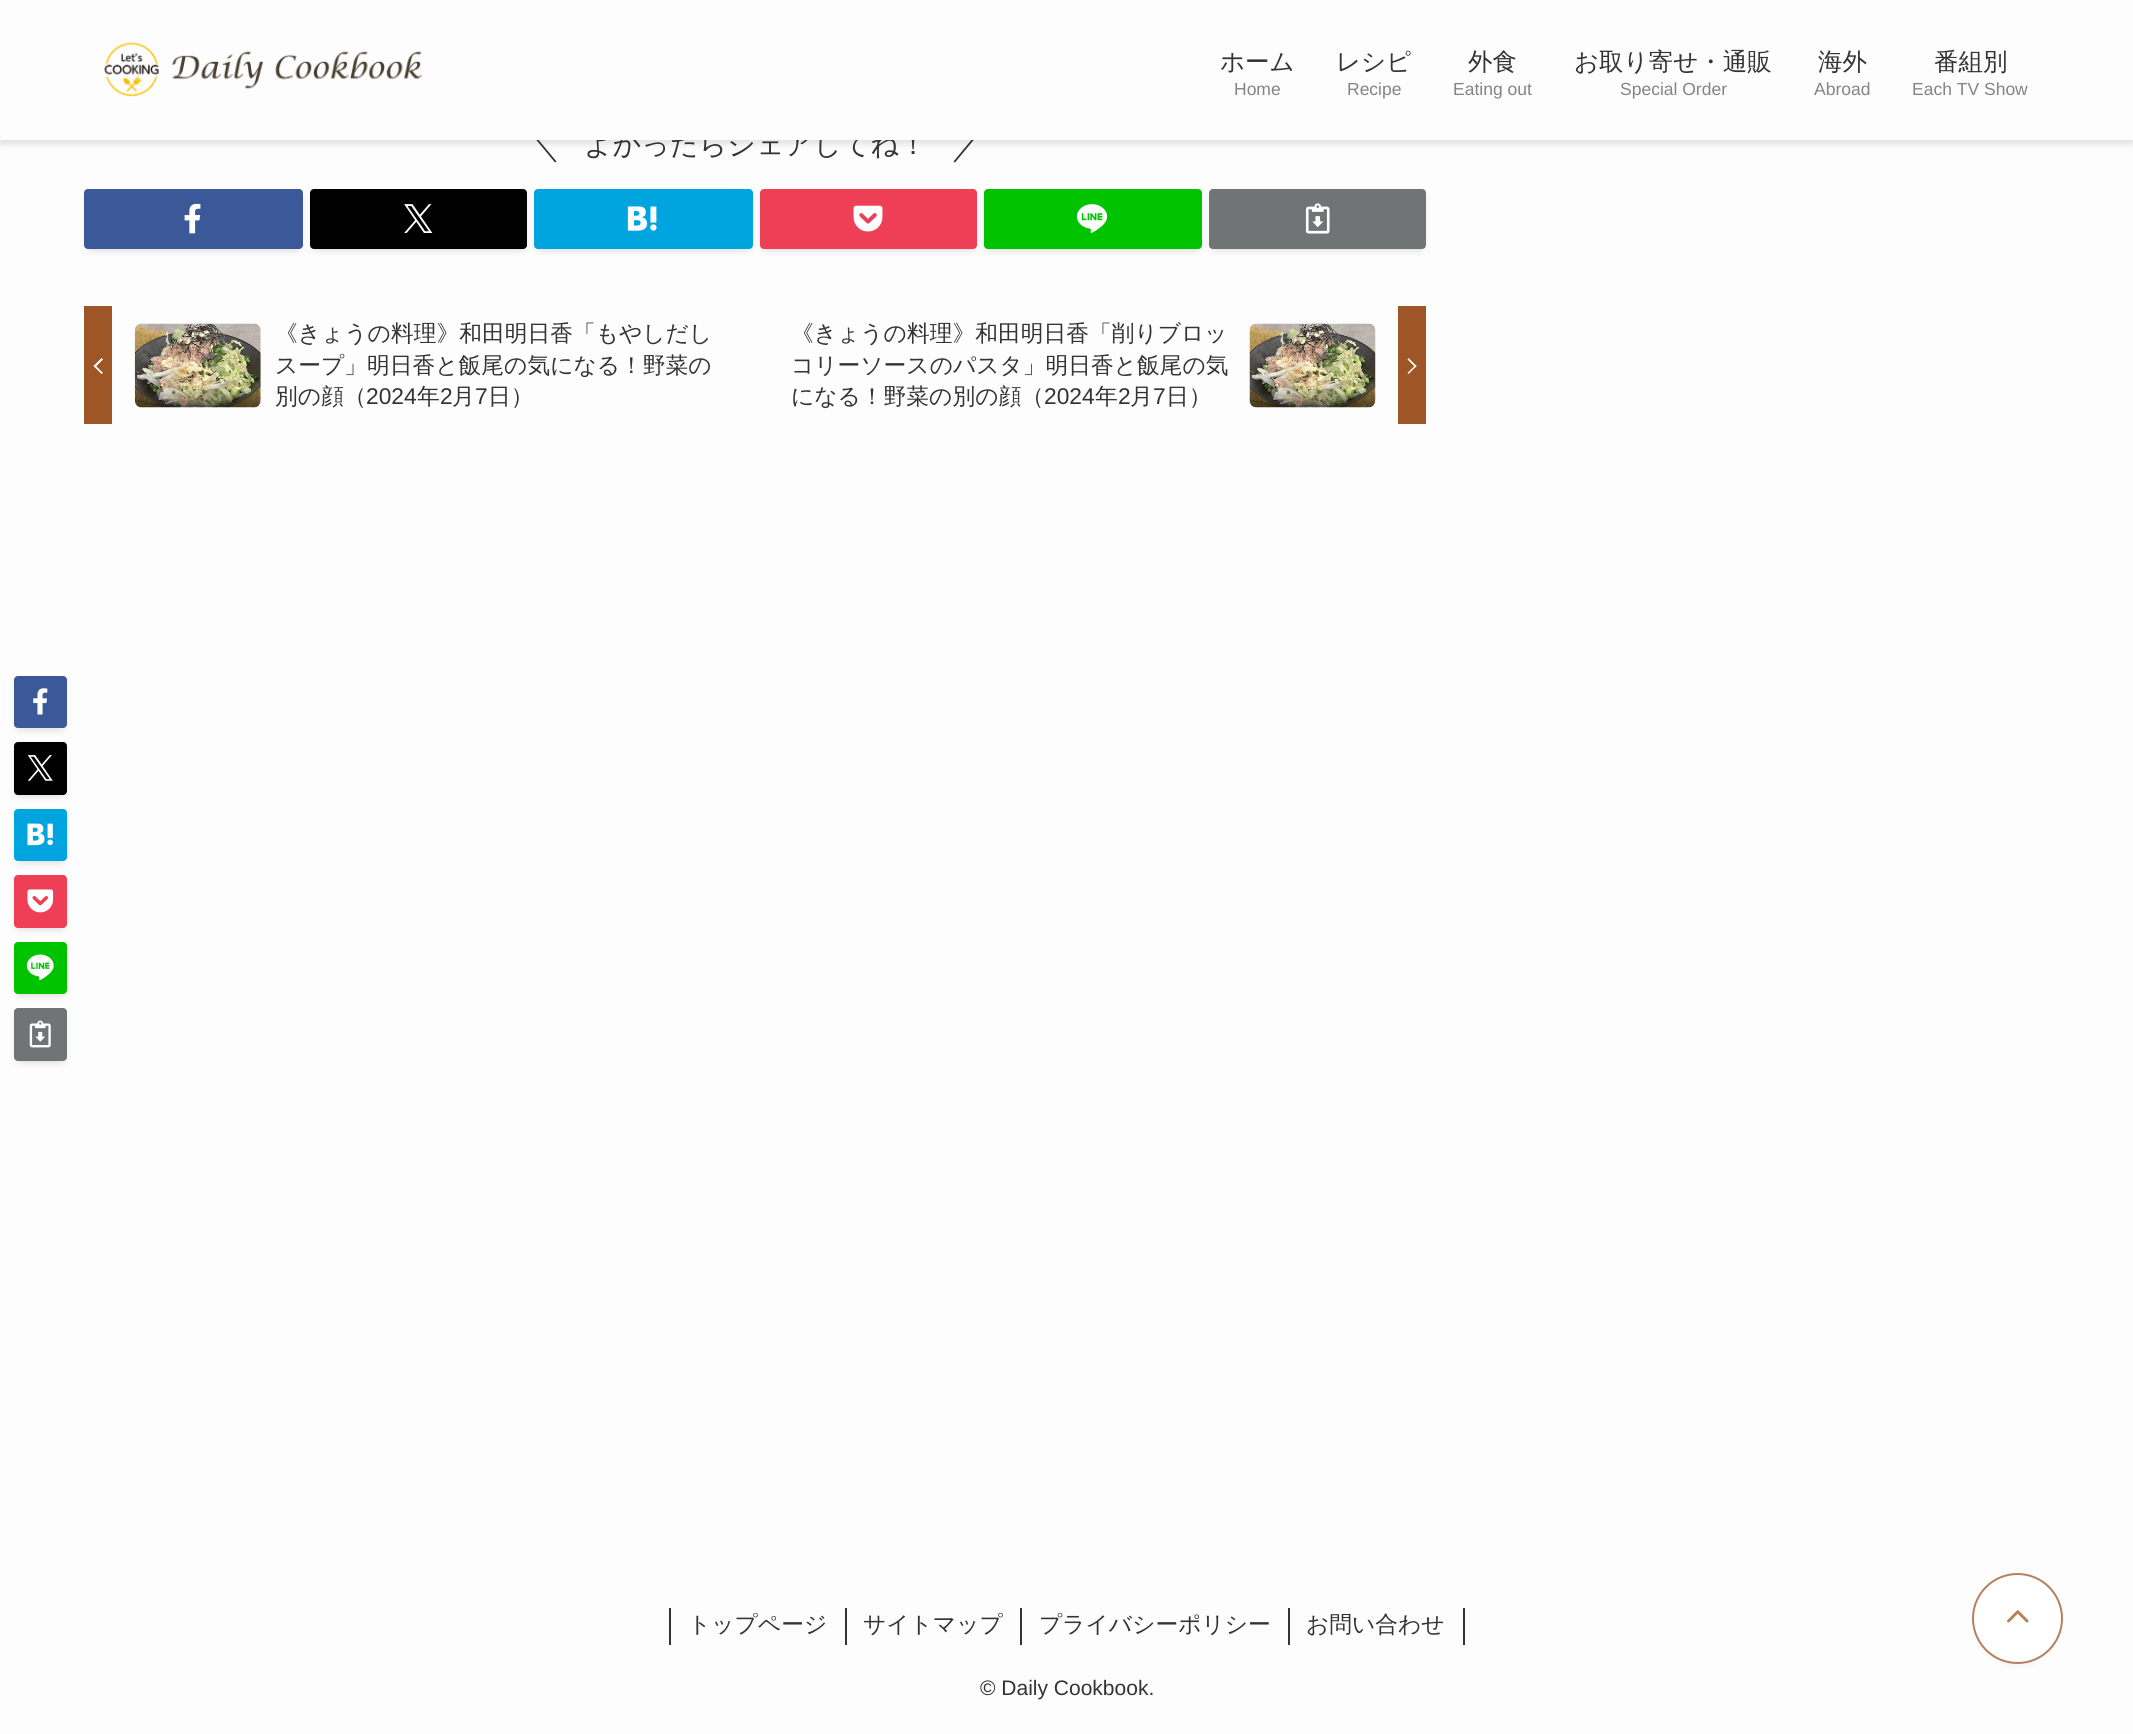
import math
import cairo

surface = cairo.ImageSurface(cairo.FORMAT_RGB24, 2133, 1734)
ctx = cairo.Context(surface)
options = cairo.FontOptions()
options.set_hint_metrics(cairo.HINT_METRICS_OFF)
options.set_hint_style(cairo.HINT_STYLE_NONE)
ctx.set_font_options(options)
ctx.set_miter_limit(4)


def set_color(code):
    ctx.set_source_rgb(*(v / 255 for v in bytes.fromhex(code[-6:])))


def draw_text(x, y, s, family, size, color, bold=False, italic=False):
    ctx.select_font_face(family, cairo.FONT_SLANT_ITALIC if italic else cairo.FONT_SLANT_NORMAL, cairo.FONT_WEIGHT_BOLD if bold else cairo.FONT_WEIGHT_NORMAL)
    ctx.set_font_size(size)
    set_color(color)
    ctx.move_to(x, y)
    ctx.show_text(s)


def fill_rect(x, y, w, h, color):
    set_color(color)
    ctx.rectangle(x, y, w, h)
    ctx.fill()


def rounded_rect(x, y, w, h, r):
    ctx.new_sub_path()
    for i, (u, v) in enumerate([(x + w - r, y + h - r), (x + r, y + h - r), (x + r, y + r), (x + w - r, y + r)]):
        ctx.arc(u, v, r, i * math.pi / 2, (i + 1) * math.pi / 2)
    ctx.close_path()


def draw_shadow(x, y, w, h, r, blur, alpha):
    ctx.push_group_with_content(cairo.CONTENT_ALPHA)
    ctx.set_operator(cairo.OPERATOR_SOURCE)
    for i in range(15, -16, -2):
        e = blur * i / 6
        if min(w, h) + 2 * e > 0:
            ctx.set_source_rgba(0, 0, 0, alpha * math.erfc((i - 1) / 8.5) / 2)
            rounded_rect(x - e, y - e, w + 2 * e, h + 2 * e, max(0, min(r + e + blur * .6, min(w, h) / 2 + e)))
            ctx.fill()
    ctx.mask(ctx.pop_group())


def draw_image(path, x, y, w, h):
    ctx.save()
    ctx.set_source_surface(cairo.ImageSurface.create_from_png(path), x, y)
    ctx.rectangle(x, y, w, h)
    ctx.fill()
    ctx.restore()


set_color("#fdfdfd")
ctx.paint()
set_color("#333333")
ctx.new_path()
ctx.move_to(528, 130)
ctx.line_to(529.5, 129)
ctx.line_to(556.5, 161.5)
ctx.line_to(555, 162.5)
ctx.close_path()
ctx.fill()
ctx.new_path()
ctx.move_to(980.5, 129)
ctx.line_to(982, 130)
ctx.line_to(955, 162.5)
ctx.line_to(953.5, 161.5)
ctx.close_path()
ctx.fill()
set_color("#000000")
draw_shadow(0, 4, 2133, 140, 0, 3.5, 0.12)
draw_text(584, 154, "よかったらシェアしてね！", "WenQuanYi Zen Hei Medium", 28, "#333333")
fill_rect(0, 0, 2133, 140, "#fdfdfd")
draw_image("assets/img1.png", 104, 42, 318, 55)
draw_text(1220, 70, "ホーム", "WenQuanYi Zen Hei Medium", 24.5, "#333333")
draw_text(1234, 95, "Home", "Liberation Sans", 17.5, "#848484")
draw_text(1336, 70, "レシピ", "WenQuanYi Zen Hei Medium", 24.5, "#333333")
draw_text(1347, 95, "Recipe", "Liberation Sans", 17.5, "#848484")
draw_text(1468, 70, "外食", "WenQuanYi Zen Hei Medium", 24.5, "#333333")
draw_text(1453, 95, "Eating out", "Liberation Sans", 17.5, "#848484")
draw_text(1574, 70, "お取り寄せ・通販", "WenQuanYi Zen Hei Medium", 24.5, "#333333")
draw_text(1620, 95, "Special Order", "Liberation Sans", 17.5, "#848484")
draw_text(1818, 70, "海外", "WenQuanYi Zen Hei Medium", 24.5, "#333333")
draw_text(1814, 95, "Abroad", "Liberation Sans", 17.5, "#848484")
draw_text(1934, 70, "番組別", "WenQuanYi Zen Hei Medium", 24.5, "#333333")
draw_text(1912, 95, "Each TV Show", "Liberation Sans", 17.5, "#848484")
set_color("#000000")
draw_shadow(91, 203, 205, 46, 0, 3.5, 0.1)
draw_shadow(84, 193, 219, 59, 4, 3.5, 0.05)
set_color("#3b5998")
rounded_rect(84, 189, 219, 60, 4)
ctx.fill()
draw_image("assets/img2.png", 184, 203, 17, 31)
set_color("#000000")
draw_shadow(317, 203, 203, 46, 0, 3.5, 0.1)
draw_shadow(310, 193, 217, 59, 4, 3.5, 0.05)
set_color("#000000")
rounded_rect(310, 189, 217, 60, 4)
ctx.fill()
draw_image("assets/img3.png", 404, 204, 29, 29)
set_color("#000000")
draw_shadow(541, 203, 205, 46, 0, 3.5, 0.1)
draw_shadow(534, 193, 219, 59, 4, 3.5, 0.05)
set_color("#00a4de")
rounded_rect(534, 189, 219, 60, 4)
ctx.fill()
draw_image("assets/img4.png", 627, 206, 30, 25)
set_color("#000000")
draw_shadow(767, 203, 203, 46, 0, 3.5, 0.1)
draw_shadow(760, 193, 217, 59, 4, 3.5, 0.05)
set_color("#ef3f56")
rounded_rect(760, 189, 217, 60, 4)
ctx.fill()
draw_image("assets/img5.png", 853, 205, 30, 27)
set_color("#000000")
draw_shadow(991, 203, 204, 46, 0, 3.5, 0.1)
draw_shadow(984, 193, 218, 59, 4, 3.5, 0.05)
set_color("#00c300")
rounded_rect(984, 189, 218, 60, 4)
ctx.fill()
draw_image("assets/img6.png", 1076, 204, 32, 29)
set_color("#000000")
draw_shadow(1216, 203, 203, 46, 0, 3.5, 0.1)
draw_shadow(1209, 193, 217, 59, 4, 3.5, 0.05)
set_color("#717475")
rounded_rect(1209, 189, 217, 60, 4)
ctx.fill()
draw_image("assets/img7.png", 1305, 203, 25, 31)
fill_rect(84, 306, 28, 118, "#9e5627")
set_color("#ffffff")
ctx.new_path()
ctx.move_to(95, 365)
ctx.line_to(103, 373)
ctx.line_to(101.5, 374)
ctx.line_to(93.5, 366)
ctx.close_path()
ctx.fill()
ctx.new_path()
ctx.move_to(101.5, 358)
ctx.line_to(103, 359.5)
ctx.line_to(95, 367.5)
ctx.line_to(93.5, 366)
ctx.close_path()
ctx.fill()
draw_image("assets/img8.png", 134, 323, 127, 85)
draw_text(275, 341, "《きょうの料理》和田明日香「もやしだし", "WenQuanYi Zen Hei Medium", 22.75, "#333333")
draw_text(275, 373, "スープ」明日香と飯尾の気になる！野菜の", "WenQuanYi Zen Hei Medium", 22.75, "#333333")
draw_text(275, 404, "別の顔（", "WenQuanYi Zen Hei Medium", 22.75, "#333333")
draw_text(366, 404, "2024", "Liberation Sans", 22.75, "#333333")
draw_text(417, 404, "年", "WenQuanYi Zen Hei Medium", 22.75, "#333333")
draw_text(440, 404, "2", "Liberation Sans", 22.75, "#333333")
draw_text(452, 404, "月", "WenQuanYi Zen Hei Medium", 22.75, "#333333")
draw_text(475, 404, "7", "Liberation Sans", 22.75, "#333333")
draw_text(488, 404, "日）", "WenQuanYi Zen Hei Medium", 22.75, "#333333")
fill_rect(1398, 306, 28, 118, "#9e5627")
draw_text(791, 341, "《きょうの料理》和田明日香「削りブロッ", "WenQuanYi Zen Hei Medium", 22.75, "#333333")
draw_text(791, 373, "コリーソースのパスタ」明日香と飯尾の気", "WenQuanYi Zen Hei Medium", 22.75, "#333333")
draw_text(791, 404, "になる！野菜の別の顔（", "WenQuanYi Zen Hei Medium", 22.75, "#333333")
draw_text(1044, 404, "2024", "Liberation Sans", 22.75, "#333333")
draw_text(1095, 404, "年", "WenQuanYi Zen Hei Medium", 22.75, "#333333")
draw_text(1118, 404, "2", "Liberation Sans", 22.75, "#333333")
draw_text(1130, 404, "月", "WenQuanYi Zen Hei Medium", 22.75, "#333333")
draw_text(1153, 404, "7", "Liberation Sans", 22.75, "#333333")
draw_text(1166, 404, "日）", "WenQuanYi Zen Hei Medium", 22.75, "#333333")
draw_image("assets/img9.png", 1249, 323, 127, 85)
set_color("#ffffff")
ctx.new_path()
ctx.move_to(1407.5, 359.5)
ctx.line_to(1408.5, 358)
ctx.line_to(1416.5, 366)
ctx.line_to(1415.5, 367.5)
ctx.close_path()
ctx.fill()
ctx.new_path()
ctx.move_to(1407.5, 373)
ctx.line_to(1415.5, 365)
ctx.line_to(1416.5, 366)
ctx.line_to(1408.5, 374)
ctx.close_path()
ctx.fill()
set_color("#000000")
draw_shadow(21, 690, 39, 38, 0, 3.5, 0.1)
draw_shadow(14, 679, 53, 53, 4, 3.5, 0.05)
set_color("#3b5998")
rounded_rect(14, 676, 53, 52, 4)
ctx.fill()
draw_image("assets/img10.png", 33, 688, 15, 27)
set_color("#000000")
draw_shadow(21, 756, 39, 39, 0, 3.5, 0.1)
draw_shadow(14, 746, 53, 52, 4, 3.5, 0.05)
set_color("#000000")
rounded_rect(14, 742, 53, 53, 4)
ctx.fill()
draw_image("assets/img11.png", 27, 755, 26, 26)
set_color("#000000")
draw_shadow(21, 823, 39, 38, 0, 3.5, 0.1)
draw_shadow(14, 812, 53, 53, 4, 3.5, 0.05)
set_color("#00a4de")
rounded_rect(14, 809, 53, 52, 4)
ctx.fill()
draw_image("assets/img12.png", 27, 823, 26, 23)
set_color("#000000")
draw_shadow(21, 889, 39, 39, 0, 3.5, 0.1)
draw_shadow(14, 879, 53, 52, 4, 3.5, 0.05)
set_color("#ef3f56")
rounded_rect(14, 875, 53, 53, 4)
ctx.fill()
draw_image("assets/img13.png", 27, 889, 27, 24)
set_color("#000000")
draw_shadow(21, 956, 39, 38, 0, 3.5, 0.1)
draw_shadow(14, 945, 53, 53, 4, 3.5, 0.05)
set_color("#00c300")
rounded_rect(14, 942, 53, 52, 4)
ctx.fill()
draw_image("assets/img14.png", 26, 954, 28, 27)
set_color("#000000")
draw_shadow(21, 1022, 39, 39, 0, 3.5, 0.1)
draw_shadow(14, 1012, 53, 52, 4, 3.5, 0.05)
set_color("#717475")
rounded_rect(14, 1008, 53, 53, 4)
ctx.fill()
draw_image("assets/img15.png", 29, 1020, 22, 28)
fill_rect(845, 1608, 2, 37, "#333333")
fill_rect(669, 1608, 2, 37, "#333333")
draw_text(688, 1632, "トップページ", "WenQuanYi Zen Hei Medium", 22.75, "#333333")
fill_rect(1020, 1608, 2, 37, "#333333")
draw_text(863, 1632, "サイトマップ", "WenQuanYi Zen Hei Medium", 22.75, "#333333")
fill_rect(1288, 1608, 2, 37, "#333333")
draw_text(1039, 1632, "プライバシーポリシー", "WenQuanYi Zen Hei Medium", 22.75, "#333333")
fill_rect(1463, 1608, 2, 37, "#333333")
draw_text(1306, 1632, "お問い合わせ", "WenQuanYi Zen Hei Medium", 22.75, "#333333")
draw_text(980, 1695, "© Daily Cookbook.", "Liberation Sans", 21, "#333333")
set_color("#3f3f3f")
draw_shadow(1979, 1587, 77, 77, 38.5, 3.5, 0.1)
set_color("#ffffff")
ctx.arc(2017.5, 1618.5, 44.5, 0, 2 * math.pi)
ctx.fill_preserve()
set_color("#b6805d")
ctx.stroke()
draw_image("assets/img16.png", 2007, 1610, 22, 13)
surface.write_to_png("output.png")
